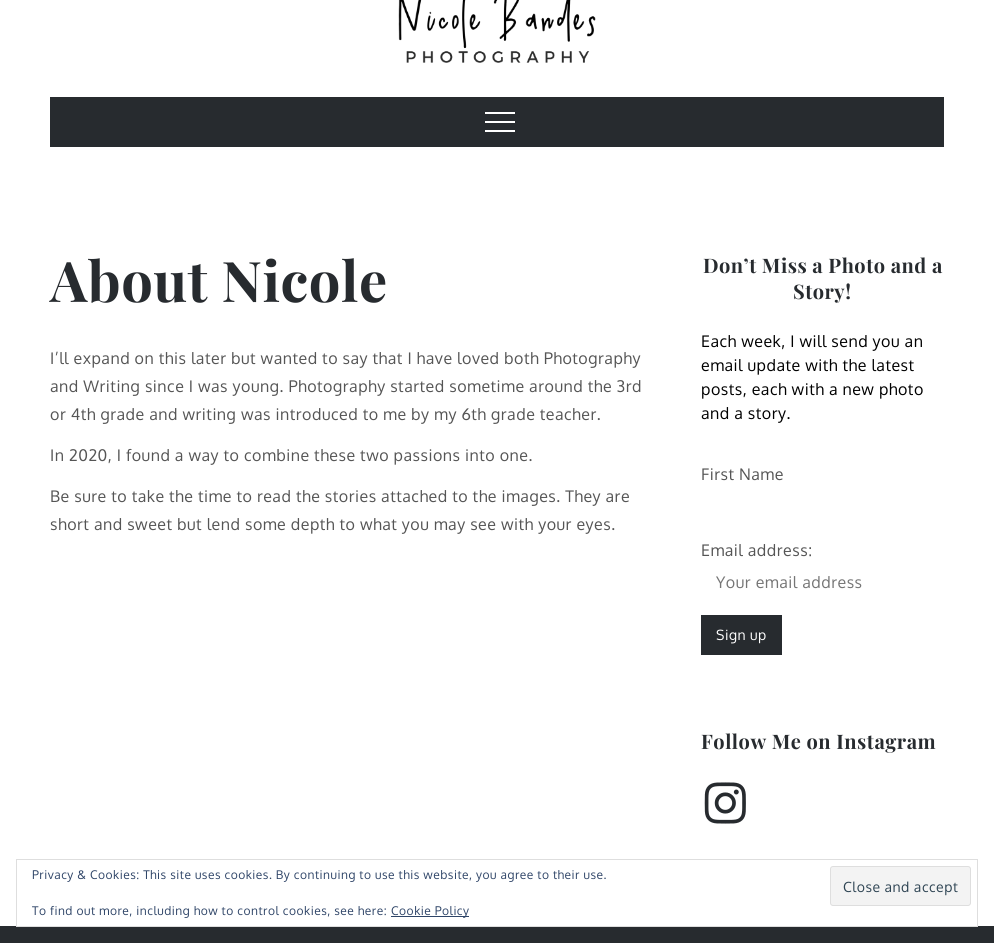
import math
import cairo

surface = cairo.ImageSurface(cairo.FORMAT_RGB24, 994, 943)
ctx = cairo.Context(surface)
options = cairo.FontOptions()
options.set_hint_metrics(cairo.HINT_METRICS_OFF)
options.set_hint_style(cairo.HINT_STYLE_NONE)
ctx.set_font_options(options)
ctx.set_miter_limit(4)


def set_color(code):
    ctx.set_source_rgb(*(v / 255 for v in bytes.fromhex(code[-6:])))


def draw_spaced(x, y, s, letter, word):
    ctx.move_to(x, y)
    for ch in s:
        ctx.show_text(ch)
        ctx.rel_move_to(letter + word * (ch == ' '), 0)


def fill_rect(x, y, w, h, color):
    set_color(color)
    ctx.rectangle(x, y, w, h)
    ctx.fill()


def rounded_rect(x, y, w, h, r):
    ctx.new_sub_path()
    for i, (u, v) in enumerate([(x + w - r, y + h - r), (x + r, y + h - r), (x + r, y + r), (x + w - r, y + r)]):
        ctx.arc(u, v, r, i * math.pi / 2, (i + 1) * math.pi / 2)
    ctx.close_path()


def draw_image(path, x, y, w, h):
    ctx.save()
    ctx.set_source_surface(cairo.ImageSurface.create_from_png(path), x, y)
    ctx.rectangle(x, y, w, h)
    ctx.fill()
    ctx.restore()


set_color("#ffffff")
ctx.paint()
draw_image("assets/img1.png", 398, 0, 198, 63)
fill_rect(50, 97, 894, 50, "#272b2f")
fill_rect(485, 112, 30, 2, "#ffffff")
fill_rect(485, 121, 30, 2, "#ffffff")
fill_rect(485, 130, 30, 2, "#ffffff")
ctx.select_font_face("Playfair Display", cairo.FONT_SLANT_NORMAL, cairo.FONT_WEIGHT_BOLD)
ctx.set_font_size(56)
set_color("#272b2f")
draw_spaced(50, 302, "About Nicole", 0.5, 0)
ctx.select_font_face("Oxygen")
ctx.set_font_size(16)
set_color("#555555")
draw_spaced(50, 364, "I’ll expand on this later but wanted to say that I have loved both Photography", 0.5, 0)
draw_spaced(50, 392, "and Writing since I was young. Photography started sometime around the 3rd", 0.5, 0)
draw_spaced(50, 420, "or 4th grade and writing was introduced to me by my 6th grade teacher.", 0.5, 0)
draw_spaced(50, 461, "In 2020, I found a way to combine these two passions into one.", 0.5, 0)
draw_spaced(50, 502, "Be sure to take the time to read the stories attached to the images. They are", 0.5, 0)
draw_spaced(50, 530, "short and sweet but lend some depth to what you may see with your eyes.", 0.5, 0)
ctx.select_font_face("Playfair Display", cairo.FONT_SLANT_NORMAL, cairo.FONT_WEIGHT_BOLD)
ctx.set_font_size(20)
set_color("#272b2f")
draw_spaced(703, 273, "Don’t Miss a Photo and a", 0.5, 0)
draw_spaced(793, 299, "Story!", 0.5, 0)
ctx.select_font_face("Oxygen")
ctx.set_font_size(16)
set_color("#000000")
draw_spaced(701, 347, "Each week, I will send you an", 0.5, 0)
draw_spaced(701, 371, "email update with the latest", 0.5, 0)
draw_spaced(701, 395, "posts, each with a new photo", 0.5, 0)
draw_spaced(701, 419, "and a story.", 0.5, 0)
set_color("#555555")
draw_spaced(701, 480, "First Name", 0.5, 0)
draw_spaced(701, 556, "Email address:", 0.5, 0)
set_color("#757575")
draw_spaced(716, 588, "Your email address", 0.5, 0)
fill_rect(701, 615, 81, 40, "#272b2f")
ctx.set_font_size(14)
set_color("#ffffff")
draw_spaced(716, 640, "Sign up", 0.5, 0)
ctx.select_font_face("Playfair Display", cairo.FONT_SLANT_NORMAL, cairo.FONT_WEIGHT_BOLD)
ctx.set_font_size(20)
set_color("#272b2f")
draw_spaced(701, 749, "Follow Me on Instagram", 0.5, 0)
draw_image("assets/img2.png", 704, 782, 42, 42)
fill_rect(0, 926, 994, 17, "#272b2f")
ctx.rectangle(16.5, 859.5, 961, 67)
set_color("#dedede")
ctx.set_line_width(1)
ctx.stroke()
ctx.select_font_face("Oxygen")
ctx.set_font_size(12)
set_color("#2e4467")
draw_spaced(32, 879, "Privacy & Cookies: This site uses cookies. By continuing to use this website, you agree to their use.", 0.5, 0)
set_color("#f3f3f3")
rounded_rect(830.5, 866.5, 140, 39, 2.5)
ctx.fill_preserve()
set_color("#dedede")
ctx.stroke()
ctx.set_font_size(14)
set_color("#2e4453")
draw_spaced(843, 892, "Close and accept", 0.5, 0)
ctx.set_font_size(12)
set_color("#2e4467")
draw_spaced(32, 915, "To find out more, including how to control cookies, see here:", 0.5, 0)
fill_rect(391, 916, 78, 1, "#2e4467")
draw_spaced(391, 915, "Cookie Policy", 0.5, 0)
surface.write_to_png("output.png")
